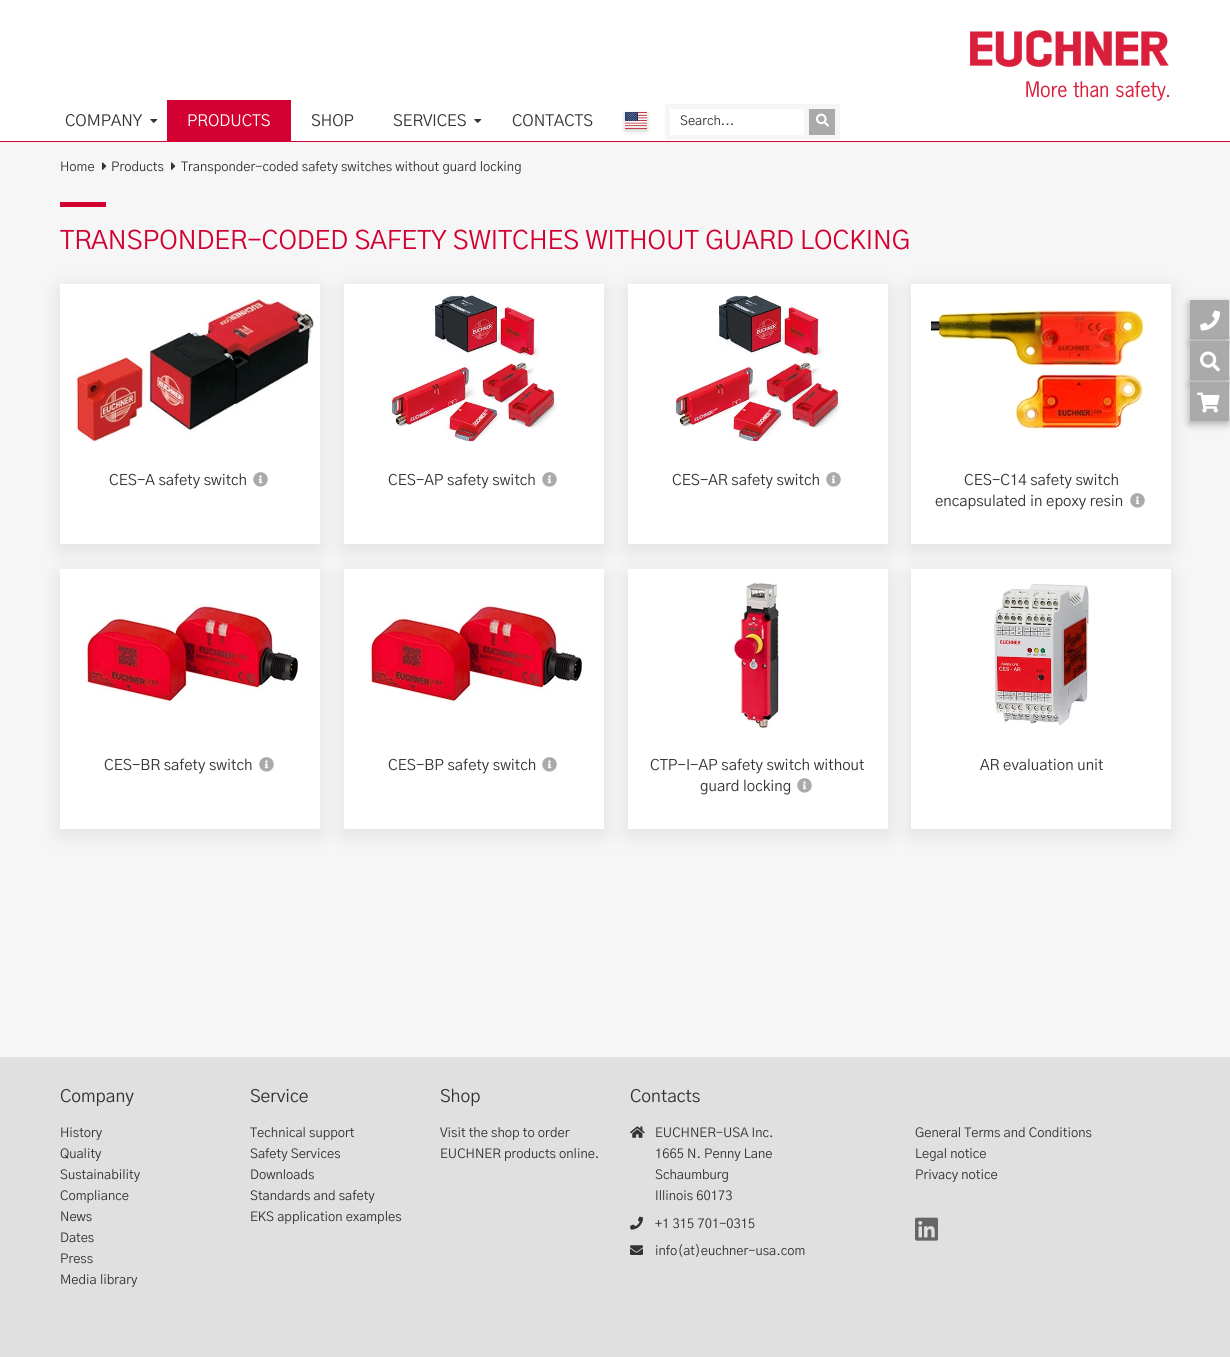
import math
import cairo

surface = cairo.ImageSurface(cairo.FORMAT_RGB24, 1230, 1357)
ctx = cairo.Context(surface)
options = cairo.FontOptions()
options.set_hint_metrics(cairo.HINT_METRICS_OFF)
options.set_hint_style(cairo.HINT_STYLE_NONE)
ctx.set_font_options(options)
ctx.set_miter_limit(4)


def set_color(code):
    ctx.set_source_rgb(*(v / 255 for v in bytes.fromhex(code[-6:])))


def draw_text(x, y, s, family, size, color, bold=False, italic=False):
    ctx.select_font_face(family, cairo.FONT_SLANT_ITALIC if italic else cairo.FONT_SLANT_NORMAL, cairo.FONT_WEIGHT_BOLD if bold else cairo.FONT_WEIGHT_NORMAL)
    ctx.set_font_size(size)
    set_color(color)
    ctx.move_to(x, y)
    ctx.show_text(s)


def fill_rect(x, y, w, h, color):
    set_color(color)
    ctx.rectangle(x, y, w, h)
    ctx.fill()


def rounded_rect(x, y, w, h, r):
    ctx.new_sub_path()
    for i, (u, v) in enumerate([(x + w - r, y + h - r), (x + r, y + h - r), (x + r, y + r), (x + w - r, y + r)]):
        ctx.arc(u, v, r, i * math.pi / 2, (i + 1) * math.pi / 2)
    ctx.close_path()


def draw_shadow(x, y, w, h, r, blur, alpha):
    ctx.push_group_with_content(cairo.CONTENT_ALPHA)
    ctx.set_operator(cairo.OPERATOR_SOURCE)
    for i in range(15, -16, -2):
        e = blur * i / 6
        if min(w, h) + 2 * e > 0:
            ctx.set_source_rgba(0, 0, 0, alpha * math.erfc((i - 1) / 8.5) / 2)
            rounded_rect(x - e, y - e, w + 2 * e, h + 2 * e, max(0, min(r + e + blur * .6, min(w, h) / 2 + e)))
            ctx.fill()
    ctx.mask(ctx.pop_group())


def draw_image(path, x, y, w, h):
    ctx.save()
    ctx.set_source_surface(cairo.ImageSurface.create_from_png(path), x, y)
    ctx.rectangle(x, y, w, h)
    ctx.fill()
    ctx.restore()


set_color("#ffffff")
ctx.paint()
draw_image("assets/img1.png", 970, 30, 199, 71)
fill_rect(0, 141, 1230, 1, "#d30132")
draw_text(65, 126, "COMPANY", "Gothic A1", 16, "#333333")
draw_image("assets/img2.png", 150, 119, 8, 4)
fill_rect(167, 100, 124, 41, "#d30132")
draw_text(187, 126, "PRODUCTS", "Gothic A1", 16, "#ffffff")
draw_text(311, 126, "SHOP", "Gothic A1", 16, "#333333")
draw_text(393, 126, "SERVICES", "Gothic A1", 16, "#333333")
draw_image("assets/img2.png", 474, 119, 8, 4)
draw_text(512, 126, "CONTACTS", "Gothic A1", 16, "#333333")
ctx.save()
ctx.set_fill_rule(cairo.FILL_RULE_EVEN_ODD)
ctx.new_path()
ctx.move_to(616, 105)
ctx.line_to(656, 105)
ctx.line_to(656, 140)
ctx.line_to(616, 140)
ctx.close_path()
ctx.move_to(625, 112)
ctx.line_to(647, 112)
ctx.line_to(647, 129)
ctx.line_to(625, 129)
ctx.close_path()
ctx.clip()
set_color("#000000")
draw_shadow(625, 114, 22, 17, 0, 2.5, 0.2)
ctx.restore()
draw_image("assets/img3.png", 625, 112, 22, 17)
fill_rect(665, 104, 175, 36, "#f6f6f6")
fill_rect(670, 109, 134, 26, "#ffffff")
draw_text(680, 125, "Search...", "Gothic A1", 13, "#333333")
fill_rect(809, 109, 26, 26, "#aaaaaa")
draw_image("assets/img4.png", 816, 113, 13, 14)
fill_rect(0, 142, 1230, 915, "#f6f6f6")
draw_text(60, 171, "Home", "Gothic A1", 13, "#333333")
draw_image("assets/img5.png", 102, 162, 5, 8)
draw_text(111, 171, "Products", "Gothic A1", 13, "#333333")
draw_image("assets/img5.png", 171, 162, 5, 8)
draw_text(181, 171, "Transponder-coded safety switches without guard locking", "Gothic A1", 13, "#333333")
fill_rect(60, 202, 46, 5, "#d30132")
draw_text(60, 249, "TRANSPONDER-CODED SAFETY SWITCHES WITHOUT GUARD LOCKING", "Gothic A1", 26, "#d30132")
set_color("#000000")
draw_shadow(60, 289, 260, 260, 0, 10, 0.1)
fill_rect(60, 284, 260, 260, "#ffffff")
draw_image("assets/img6.png", 75, 297, 239, 145)
draw_text(109, 485, "CES-A safety switch", "Gothic A1", 15, "#333333")
draw_image("assets/img7.png", 253, 472, 15, 15)
set_color("#000000")
draw_shadow(344, 289, 260, 260, 0, 10, 0.1)
fill_rect(344, 284, 260, 260, "#ffffff")
draw_image("assets/img8.png", 390, 295, 167, 147)
draw_text(388, 485, "CES-AP safety switch", "Gothic A1", 15, "#333333")
draw_image("assets/img7.png", 542, 472, 15, 15)
set_color("#000000")
draw_shadow(628, 289, 260, 260, 0, 10, 0.1)
fill_rect(628, 284, 260, 260, "#ffffff")
draw_image("assets/img9.png", 674, 295, 167, 147)
draw_text(672, 485, "CES-AR safety switch", "Gothic A1", 15, "#333333")
draw_image("assets/img7.png", 826, 472, 15, 15)
set_color("#000000")
draw_shadow(911, 289, 260, 260, 0, 10, 0.1)
fill_rect(911, 284, 260, 260, "#ffffff")
draw_image("assets/img10.png", 931, 310, 213, 120)
draw_text(964, 485, "CES-C14 safety switch", "Gothic A1", 15, "#333333")
draw_text(935, 506, "encapsulated in epoxy resin", "Gothic A1", 15, "#333333")
draw_image("assets/img7.png", 1130, 493, 15, 15)
set_color("#000000")
draw_shadow(60, 574, 260, 260, 0, 10, 0.1)
fill_rect(60, 569, 260, 260, "#ffffff")
draw_image("assets/img11.png", 85, 604, 214, 100)
draw_text(104, 770, "CES-BR safety switch", "Gothic A1", 15, "#333333")
draw_image("assets/img7.png", 259, 757, 15, 15)
set_color("#000000")
draw_shadow(344, 574, 260, 260, 0, 10, 0.1)
fill_rect(344, 569, 260, 260, "#ffffff")
draw_image("assets/img11.png", 369, 604, 214, 100)
draw_text(388, 770, "CES-BP safety switch", "Gothic A1", 15, "#333333")
draw_image("assets/img7.png", 542, 757, 15, 15)
set_color("#000000")
draw_shadow(628, 574, 260, 260, 0, 10, 0.1)
fill_rect(628, 569, 260, 260, "#ffffff")
draw_image("assets/img12.png", 733, 582, 46, 146)
draw_text(650, 770, "CTP-I-AP safety switch without", "Gothic A1", 15, "#333333")
draw_text(700, 791, "guard locking", "Gothic A1", 15, "#333333")
draw_image("assets/img7.png", 797, 778, 15, 15)
set_color("#000000")
draw_shadow(911, 574, 260, 260, 0, 10, 0.1)
fill_rect(911, 569, 260, 260, "#ffffff")
draw_image("assets/img13.png", 994, 584, 95, 142)
draw_text(980, 770, "AR evaluation unit", "Gothic A1", 15, "#333333")
set_color("#000000")
draw_shadow(1189, 303, 39, 39, 0, 4, 0.3)
fill_rect(1190, 300, 39, 39, "#aaaaaa")
draw_image("assets/img14.png", 1200, 310, 20, 21)
set_color("#000000")
draw_shadow(1189, 344, 39, 39, 0, 4, 0.3)
fill_rect(1190, 341, 39, 39, "#aaaaaa")
draw_image("assets/img15.png", 1200, 351, 20, 21)
set_color("#000000")
draw_shadow(1189, 385, 39, 39, 0, 4, 0.3)
fill_rect(1190, 382, 39, 39, "#aaaaaa")
draw_image("assets/img16.png", 1197, 392, 23, 21)
fill_rect(0, 1057, 1230, 300, "#e0e0e0")
draw_text(60, 1102, "Company", "Gothic A1", 17.5, "#333333")
draw_text(60, 1137, "History", "Gothic A1", 13, "#333333")
draw_text(60, 1158, "Quality", "Gothic A1", 13, "#333333")
draw_text(60, 1179, "Sustainability", "Gothic A1", 13, "#333333")
draw_text(60, 1200, "Compliance", "Gothic A1", 13, "#333333")
draw_text(60, 1221, "News", "Gothic A1", 13, "#333333")
draw_text(60, 1242, "Dates", "Gothic A1", 13, "#333333")
draw_text(60, 1263, "Press", "Gothic A1", 13, "#333333")
draw_text(60, 1284, "Media library", "Gothic A1", 13, "#333333")
draw_text(250, 1102, "Service", "Gothic A1", 17.5, "#333333")
draw_text(250, 1137, "Technical support", "Gothic A1", 13, "#333333")
draw_text(250, 1158, "Safety Services", "Gothic A1", 13, "#333333")
draw_text(250, 1179, "Downloads", "Gothic A1", 13, "#333333")
draw_text(250, 1200, "Standards and safety", "Gothic A1", 13, "#333333")
draw_text(250, 1221, "EKS application examples", "Gothic A1", 13, "#333333")
draw_text(440, 1102, "Shop", "Gothic A1", 17.5, "#333333")
draw_text(440, 1137, "Visit the shop to order", "Gothic A1", 13, "#333333")
draw_text(440, 1158, "EUCHNER products online.", "Gothic A1", 13, "#333333")
draw_text(630, 1102, "Contacts", "Gothic A1", 17.5, "#333333")
draw_image("assets/img17.png", 630, 1126, 15, 12)
draw_text(655, 1137, "EUCHNER-USA Inc.", "Gothic A1", 13, "#333333")
draw_text(655, 1158, "1665 N. Penny Lane", "Gothic A1", 13, "#333333")
draw_text(655, 1179, "Schaumburg", "Gothic A1", 13, "#333333")
draw_text(655, 1200, "Illinois 60173", "Gothic A1", 13, "#333333")
draw_image("assets/img18.png", 630, 1216, 13, 14)
draw_text(655, 1228, "+1 315 701-0315", "Gothic A1", 13, "#333333")
draw_image("assets/img19.png", 630, 1245, 13, 10)
draw_text(655, 1255, "info(at)euchner-usa.com", "Gothic A1", 13, "#333333")
draw_text(915, 1137, "General Terms and Conditions", "Gothic A1", 13, "#333333")
draw_text(915, 1158, "Legal notice", "Gothic A1", 13, "#333333")
draw_text(915, 1179, "Privacy notice", "Gothic A1", 13, "#333333")
draw_image("assets/img20.png", 915, 1217, 23, 24)
surface.write_to_png("output.png")
